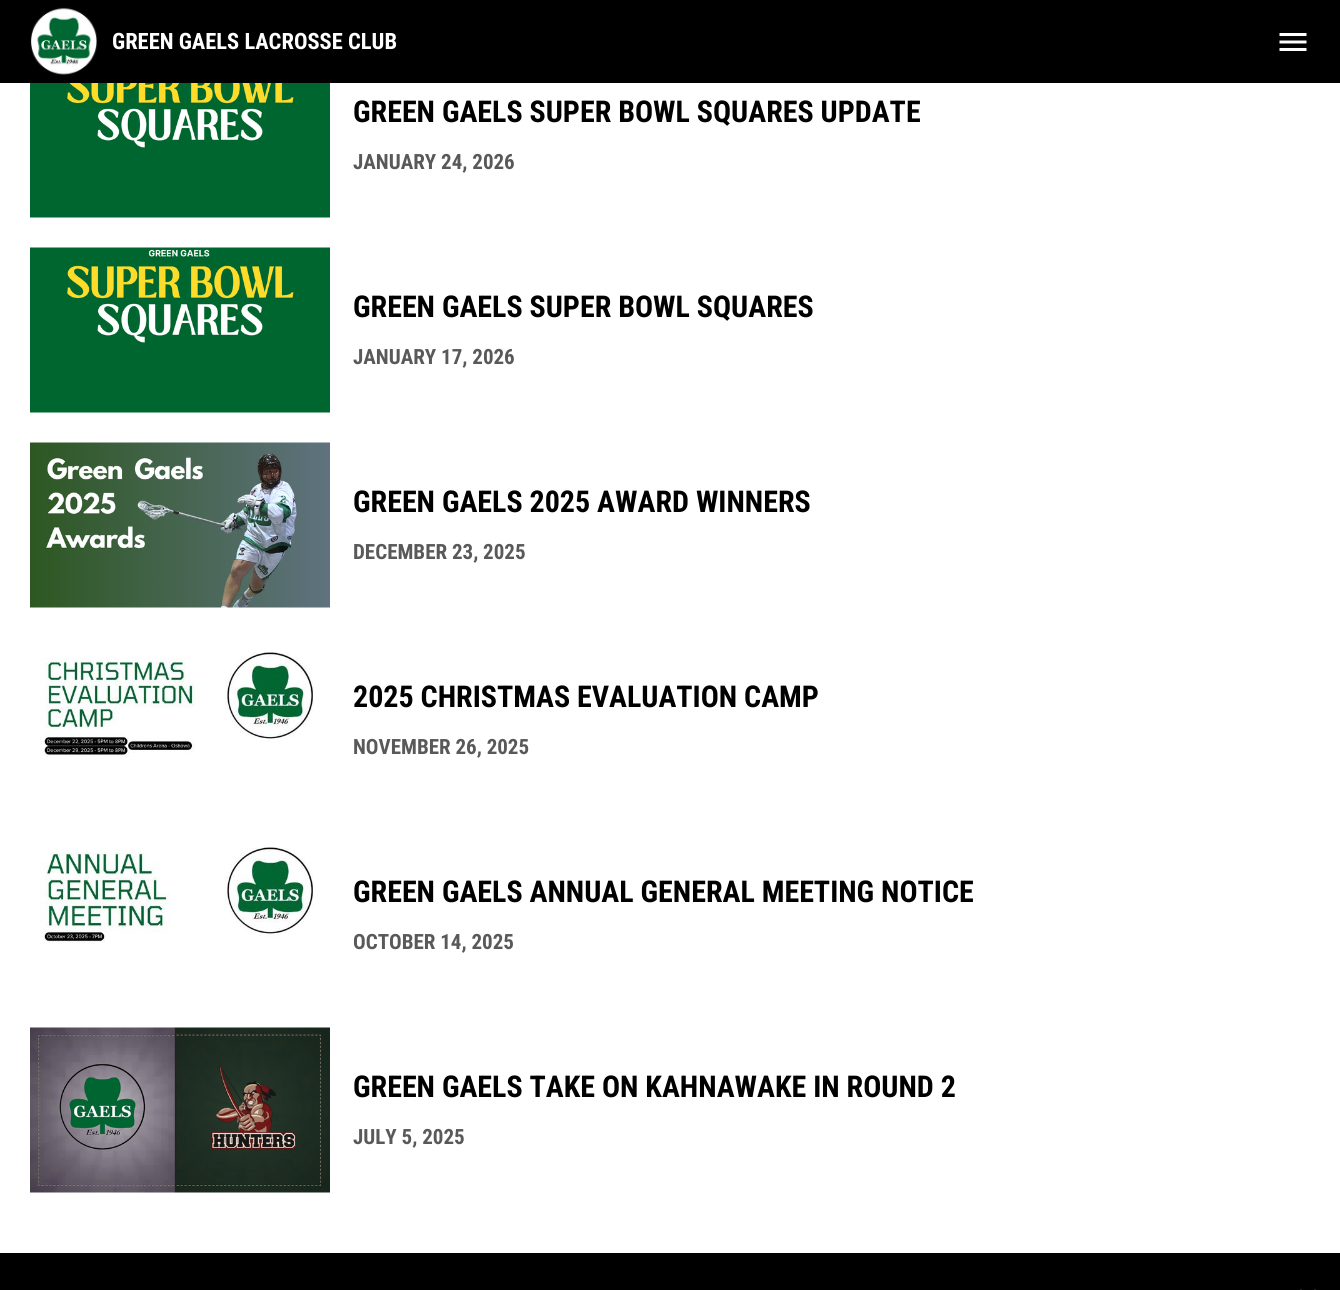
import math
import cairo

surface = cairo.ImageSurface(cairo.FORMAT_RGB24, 1340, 1290)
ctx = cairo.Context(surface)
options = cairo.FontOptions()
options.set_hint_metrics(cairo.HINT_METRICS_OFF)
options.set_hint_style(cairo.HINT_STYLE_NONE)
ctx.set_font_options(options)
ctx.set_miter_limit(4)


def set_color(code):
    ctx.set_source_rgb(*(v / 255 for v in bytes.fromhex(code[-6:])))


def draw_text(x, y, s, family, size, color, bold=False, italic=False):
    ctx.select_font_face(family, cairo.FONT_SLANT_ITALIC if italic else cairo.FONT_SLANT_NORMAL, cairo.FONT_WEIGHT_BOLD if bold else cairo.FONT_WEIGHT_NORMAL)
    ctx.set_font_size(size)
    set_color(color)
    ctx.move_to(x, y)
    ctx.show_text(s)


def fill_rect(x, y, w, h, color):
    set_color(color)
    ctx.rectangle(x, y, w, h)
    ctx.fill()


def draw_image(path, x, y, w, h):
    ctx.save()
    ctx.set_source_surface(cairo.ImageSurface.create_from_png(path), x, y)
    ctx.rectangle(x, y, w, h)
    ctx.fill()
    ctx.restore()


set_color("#ffffff")
ctx.paint()
fill_rect(0, 0, 1340, 83, "#000000")
draw_image("assets/img1.png", 30, 7, 68, 68)
draw_text(112, 49, "GREEN GAELS LACROSSE CLUB", "Roboto Condensed", 22.5, "#ffffff", bold=True)
draw_image("assets/img2.png", 1279, 33, 28, 18)
draw_image("assets/img3.png", 30, 83, 300, 135)
draw_text(353, 122, "GREEN GAELS SUPER BOWL SQUARES UPDATE", "Roboto Condensed", 30, "#000000", bold=True)
draw_text(353, 169, "JANUARY 24, 2026", "Roboto Condensed", 21, "#595959", bold=True)
draw_image("assets/img4.png", 30, 247, 300, 166)
draw_text(353, 317, "GREEN GAELS SUPER BOWL SQUARES", "Roboto Condensed", 30, "#000000", bold=True)
draw_text(353, 364, "JANUARY 17, 2026", "Roboto Condensed", 21, "#595959", bold=True)
draw_image("assets/img5.png", 30, 442, 300, 166)
draw_text(353, 512, "GREEN GAELS 2025 AWARD WINNERS", "Roboto Condensed", 30, "#000000", bold=True)
draw_text(353, 559, "DECEMBER 23, 2025", "Roboto Condensed", 21, "#595959", bold=True)
draw_image("assets/img6.png", 40, 652, 274, 105)
draw_text(353, 707, "2025 CHRISTMAS EVALUATION CAMP", "Roboto Condensed", 30, "#000000", bold=True)
draw_text(353, 754, "NOVEMBER 26, 2025", "Roboto Condensed", 21, "#595959", bold=True)
draw_image("assets/img7.png", 40, 847, 274, 96)
draw_text(353, 902, "GREEN GAELS ANNUAL GENERAL MEETING NOTICE", "Roboto Condensed", 30, "#000000", bold=True)
draw_text(353, 949, "OCTOBER 14, 2025", "Roboto Condensed", 21, "#595959", bold=True)
draw_image("assets/img8.png", 30, 1027, 300, 166)
draw_text(353, 1097, "GREEN GAELS TAKE ON KAHNAWAKE IN ROUND 2", "Roboto Condensed", 30, "#000000", bold=True)
draw_text(353, 1144, "JULY 5, 2025", "Roboto Condensed", 21, "#595959", bold=True)
fill_rect(0, 1253, 1340, 37, "#000000")
set_color("#ffffff")
ctx.new_path()
ctx.move_to(1301, 1289.5)
ctx.line_to(1308, 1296.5)
ctx.line_to(1315, 1289.5)
ctx.line_to(1317, 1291.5)
ctx.line_to(1308, 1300.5)
ctx.line_to(1299, 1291.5)
ctx.close_path()
ctx.fill()
surface.write_to_png("output.png")
